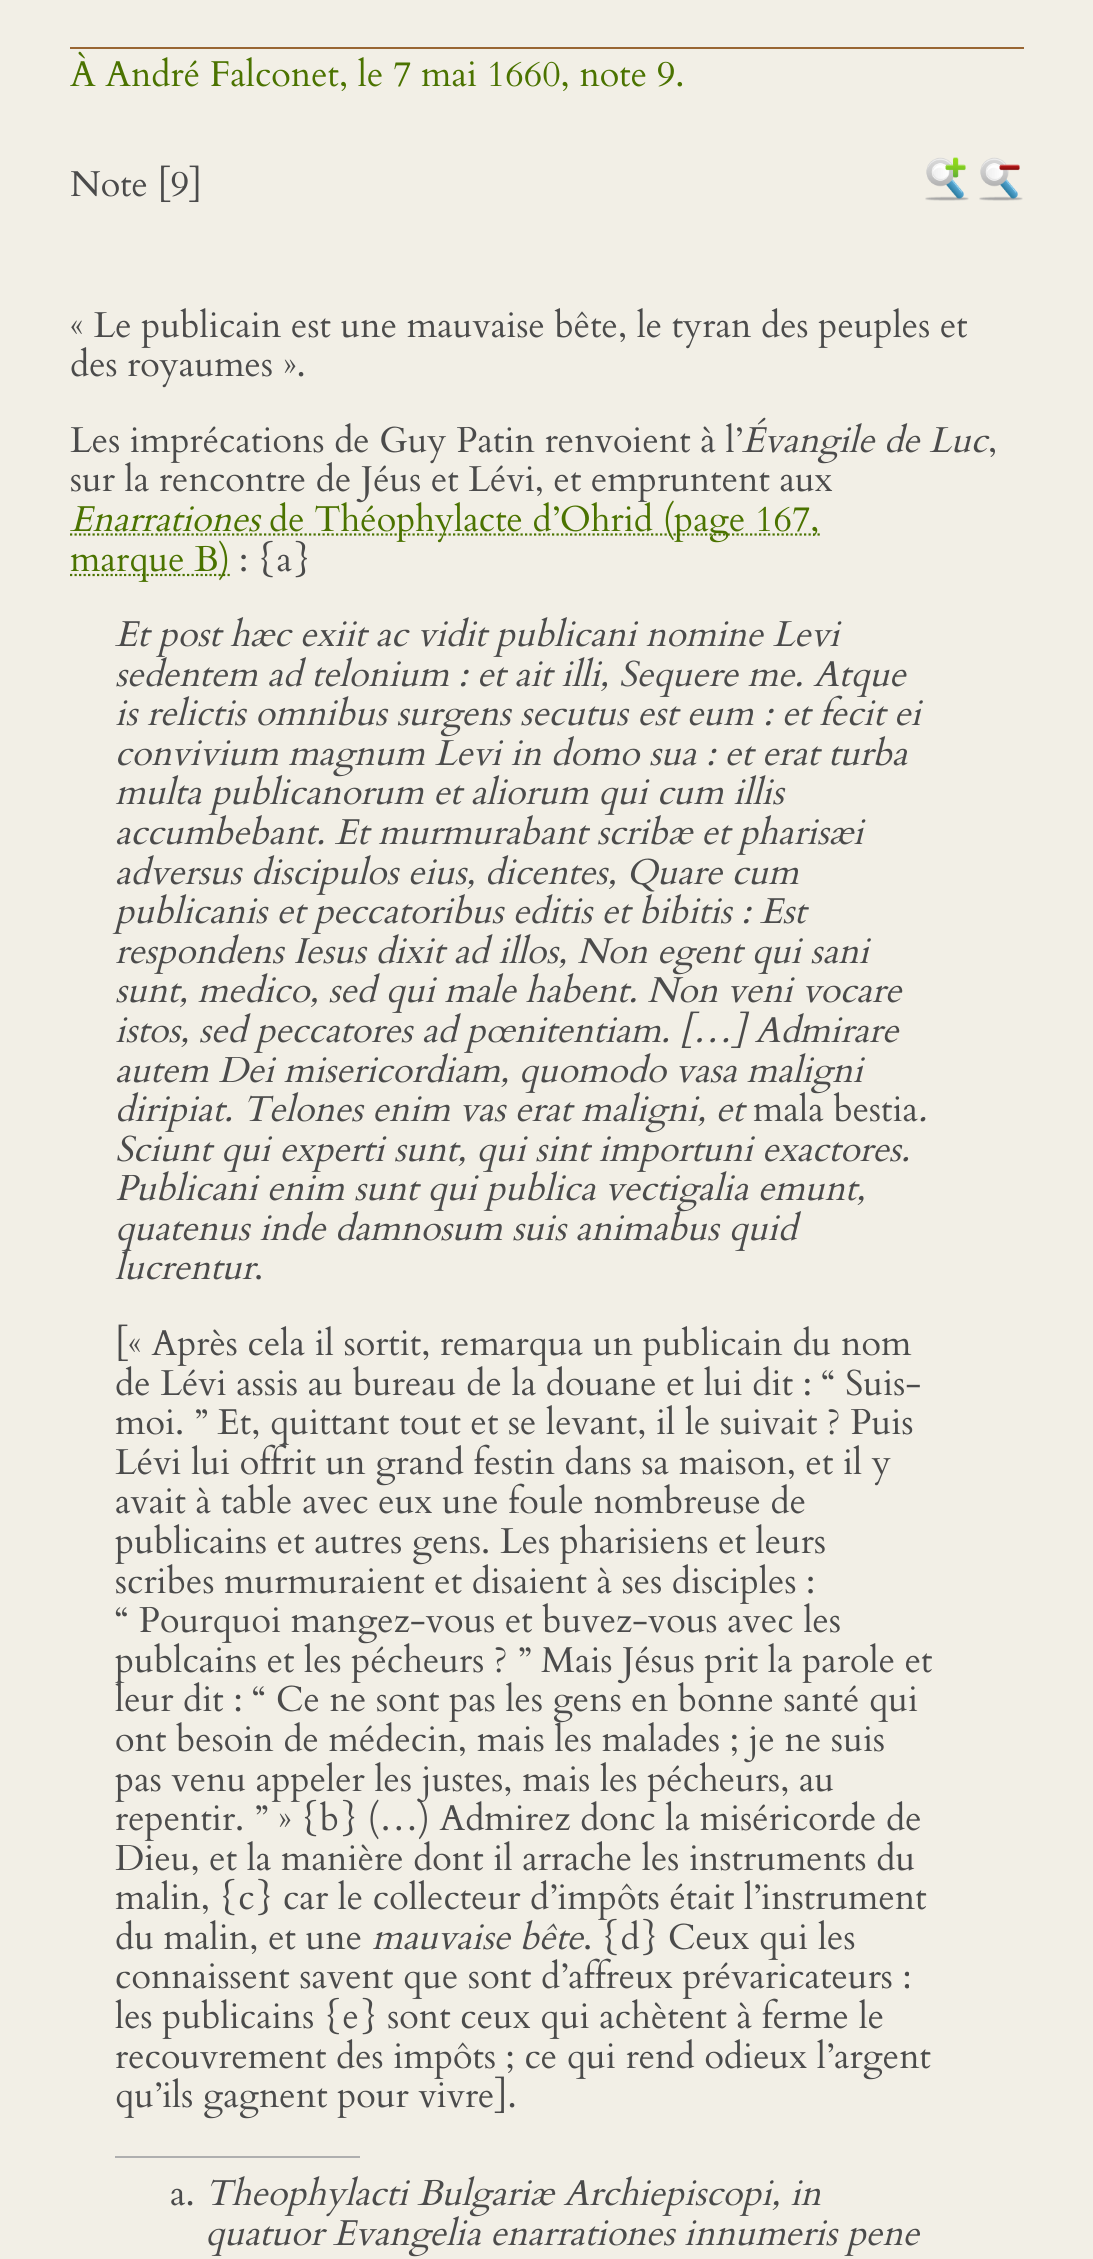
import math
import cairo

surface = cairo.ImageSurface(cairo.FORMAT_RGB24, 1093, 2259)
ctx = cairo.Context(surface)
options = cairo.FontOptions()
options.set_hint_metrics(cairo.HINT_METRICS_OFF)
options.set_hint_style(cairo.HINT_STYLE_NONE)
ctx.set_font_options(options)
ctx.set_miter_limit(4)


def set_color(code):
    ctx.set_source_rgb(*(v / 255 for v in bytes.fromhex(code[-6:])))


def draw_text(x, y, s, family, size, color, bold=False, italic=False):
    ctx.select_font_face(family, cairo.FONT_SLANT_ITALIC if italic else cairo.FONT_SLANT_NORMAL, cairo.FONT_WEIGHT_BOLD if bold else cairo.FONT_WEIGHT_NORMAL)
    ctx.set_font_size(size)
    set_color(color)
    ctx.move_to(x, y)
    ctx.show_text(s)


def fill_rect(x, y, w, h, color):
    set_color(color)
    ctx.rectangle(x, y, w, h)
    ctx.fill()


def draw_image(path, x, y, w, h):
    ctx.save()
    ctx.set_source_surface(cairo.ImageSurface.create_from_png(path), x, y)
    ctx.rectangle(x, y, w, h)
    ctx.fill()
    ctx.restore()


set_color("#f2efe6")
ctx.paint()
fill_rect(70, 47, 954, 2, "#996633")
draw_text(70, 86, "À André Falconet, le 7 mai 1660, note 9.", "Cardo", 36, "#4b7300")
draw_text(70, 196, "Note [9]", "Cardo", 36, "#4b4b4b")
draw_image("assets/img1.png", 925, 157, 44, 44)
draw_image("assets/img2.png", 979, 157, 44, 44)
draw_text(70, 337, "« Le publicain est une mauvaise bête, le tyran des peuples et", "Cardo", 36, "#4b4b4b")
draw_text(70, 376, "des royaumes ».", "Cardo", 36, "#4b4b4b")
draw_text(70, 452, "Les imprécations de Guy Patin renvoient à l’", "Cardo", 36, "#4b4b4b")
draw_text(742, 452, "Évangile de Luc", "Cardo", 36, "#4b4b4b", italic=True)
draw_text(988, 452, ",", "Cardo", 36, "#4b4b4b")
draw_text(70, 491, "sur la rencontre de Jéus et Lévi, et empruntent aux", "Cardo", 36, "#4b4b4b")
draw_text(70, 531, "Enarrationes", "Cardo", 36, "#4b7300", italic=True)
ctx.new_path()
ctx.move_to(70, 534.5)
ctx.line_to(259.5, 534.5)
ctx.set_line_width(2.2)
ctx.set_dash([2.25, 2.25])
ctx.stroke()
ctx.new_path()
ctx.move_to(259.5, 534.5)
ctx.line_to(820, 534.5)
ctx.stroke()
draw_text(269, 531, "de Théophylacte d’Ohrid (page 167,", "Cardo", 36, "#4b7300")
ctx.new_path()
ctx.move_to(70, 575)
ctx.line_to(230, 575)
ctx.stroke()
draw_text(70, 571, "marque B)", "Cardo", 36, "#4b7300")
draw_text(239, 571, ": {a}", "Cardo", 36, "#4b4b4b")
draw_text(115, 646, "Et post hæc exiit ac vidit publicani nomine Levi", "Cardo", 36, "#4b4b4b", italic=True)
draw_text(115, 686, "sedentem ad telonium : et ait illi, Sequere me. Atque", "Cardo", 36, "#4b4b4b", italic=True)
draw_text(115, 725, "is relictis omnibus surgens secutus est eum : et fecit ei", "Cardo", 36, "#4b4b4b", italic=True)
draw_text(115, 765, "convivium magnum Levi in domo sua : et erat turba", "Cardo", 36, "#4b4b4b", italic=True)
draw_text(115, 804, "multa publicanorum et aliorum qui cum illis", "Cardo", 36, "#4b4b4b", italic=True)
draw_text(115, 844, "accumbebant. Et murmurabant scribæ et pharisæi", "Cardo", 36, "#4b4b4b", italic=True)
draw_text(115, 884, "adversus discipulos eius, dicentes, Quare cum", "Cardo", 36, "#4b4b4b", italic=True)
draw_text(115, 923, "publicanis et peccatoribus editis et bibitis : Est", "Cardo", 36, "#4b4b4b", italic=True)
draw_text(115, 963, "respondens Iesus dixit ad illos, Non egent qui sani", "Cardo", 36, "#4b4b4b", italic=True)
draw_text(115, 1002, "sunt, medico, sed qui male habent. Non veni vocare", "Cardo", 36, "#4b4b4b", italic=True)
draw_text(115, 1042, "istos, sed peccatores ad pœnitentiam. […] Admirare", "Cardo", 36, "#4b4b4b", italic=True)
draw_text(115, 1082, "autem Dei misericordiam, quomodo vasa maligni", "Cardo", 36, "#4b4b4b", italic=True)
draw_text(115, 1121, "diripiat. Telones enim vas erat maligni, et", "Cardo", 36, "#4b4b4b", italic=True)
draw_text(753, 1121, "mala bestia", "Cardo", 36, "#4b4b4b")
draw_text(918, 1121, ".", "Cardo", 36, "#4b4b4b", italic=True)
draw_text(115, 1161, "Sciunt qui experti sunt, qui sint importuni exactores.", "Cardo", 36, "#4b4b4b", italic=True)
draw_text(115, 1200, "Publicani enim sunt qui publica vectigalia emunt,", "Cardo", 36, "#4b4b4b", italic=True)
draw_text(115, 1240, "quatenus inde damnosum suis animabus quid", "Cardo", 36, "#4b4b4b", italic=True)
draw_text(115, 1279, "lucrentur", "Cardo", 36, "#4b4b4b", italic=True)
draw_text(254, 1279, ".", "Cardo", 36, "#4b4b4b")
draw_text(115, 1355, "[« Après cela il sortit, remarqua un publicain du nom", "Cardo", 36, "#4b4b4b")
draw_text(115, 1395, "de Lévi assis au bureau de la douane et lui dit : “ Suis-", "Cardo", 36, "#4b4b4b")
draw_text(115, 1434, "moi. ” Et, quittant tout et se levant, il le suivait ? Puis", "Cardo", 36, "#4b4b4b")
draw_text(115, 1474, "Lévi lui offrit un grand festin dans sa maison, et il y", "Cardo", 36, "#4b4b4b")
draw_text(115, 1513, "avait à table avec eux une foule nombreuse de", "Cardo", 36, "#4b4b4b")
draw_text(115, 1553, "publicains et autres gens. Les pharisiens et leurs", "Cardo", 36, "#4b4b4b")
draw_text(115, 1593, "scribes murmuraient et disaient à ses disciples :", "Cardo", 36, "#4b4b4b")
draw_text(115, 1632, "“ Pourquoi mangez-vous et buvez-vous avec les", "Cardo", 36, "#4b4b4b")
draw_text(115, 1672, "publcains et les pécheurs ? ” Mais Jésus prit la parole et", "Cardo", 36, "#4b4b4b")
draw_text(115, 1711, "leur dit : “ Ce ne sont pas les gens en bonne santé qui", "Cardo", 36, "#4b4b4b")
draw_text(115, 1751, "ont besoin de médecin, mais les malades ; je ne suis", "Cardo", 36, "#4b4b4b")
draw_text(115, 1791, "pas venu appeler les justes, mais les pécheurs, au", "Cardo", 36, "#4b4b4b")
draw_text(115, 1830, "repentir. ” » {b} (…) Admirez donc la miséricorde de", "Cardo", 36, "#4b4b4b")
draw_text(115, 1870, "Dieu, et la manière dont il arrache les instruments du", "Cardo", 36, "#4b4b4b")
draw_text(115, 1909, "malin, {c} car le collecteur d’impôts était l’instrument", "Cardo", 36, "#4b4b4b")
draw_text(115, 1949, "du malin, et une", "Cardo", 36, "#4b4b4b")
draw_text(372, 1949, "mauvaise bête", "Cardo", 36, "#4b4b4b", italic=True)
draw_text(583, 1949, ". {d} Ceux qui les", "Cardo", 36, "#4b4b4b")
draw_text(115, 1988, "connaissent savent que sont d’affreux prévaricateurs :", "Cardo", 36, "#4b4b4b")
draw_text(115, 2028, "les publicains {e} sont ceux qui achètent à ferme le", "Cardo", 36, "#4b4b4b")
draw_text(115, 2068, "recouvrement des impôts ; ce qui rend odieux l’argent", "Cardo", 36, "#4b4b4b")
draw_text(115, 2107, "qu’ils gagnent pour vivre].", "Cardo", 36, "#4b4b4b")
fill_rect(115, 2156, 245, 2, "#afafaf")
draw_text(170, 2205, "a.", "Cardo", 36, "#4b4b4b")
draw_text(205, 2205, "Theophylacti Bulgariæ Archiepiscopi, in", "Cardo", 36, "#4b4b4b", italic=True)
draw_text(205, 2245, "quatuor Evangelia enarrationes innumeris pene", "Cardo", 36, "#4b4b4b", italic=True)
surface.write_to_png("output.png")
